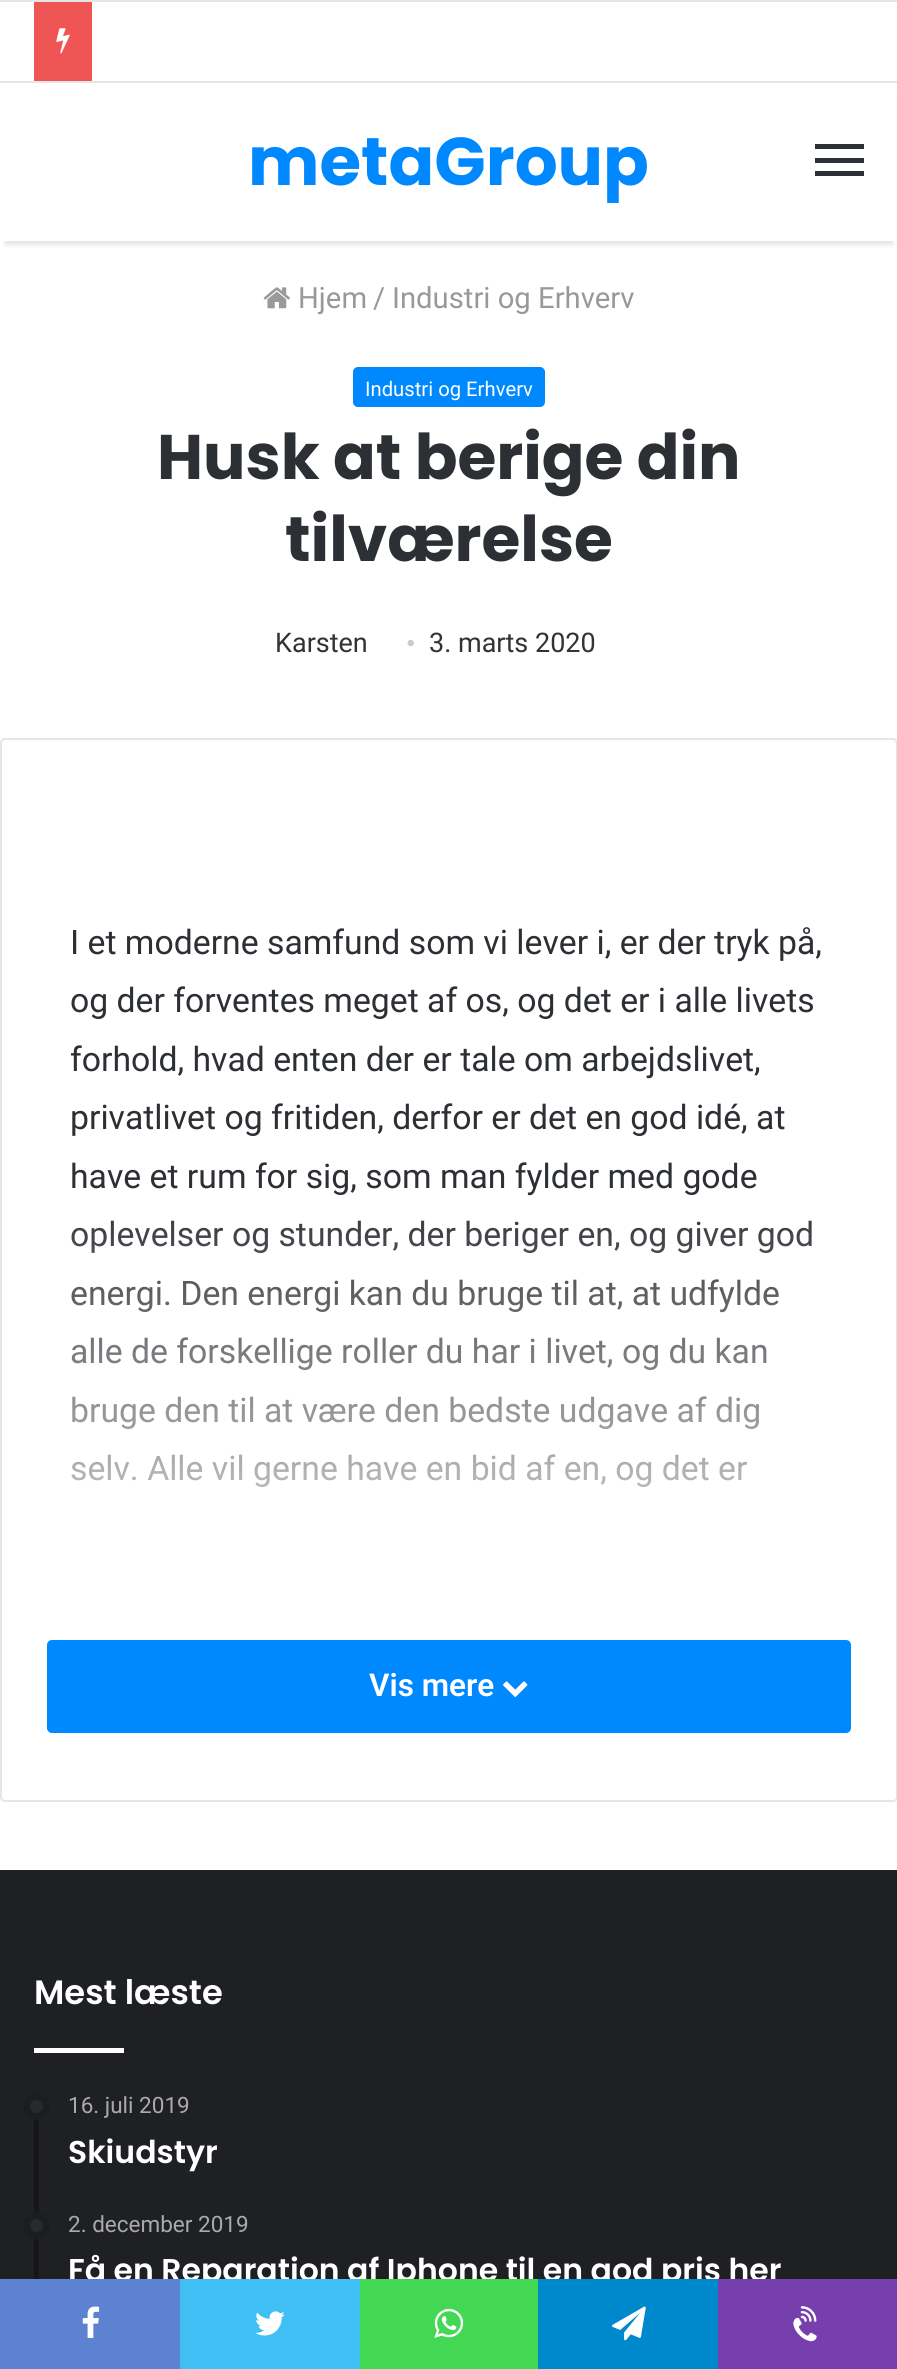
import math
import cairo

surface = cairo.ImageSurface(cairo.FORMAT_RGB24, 897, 2369)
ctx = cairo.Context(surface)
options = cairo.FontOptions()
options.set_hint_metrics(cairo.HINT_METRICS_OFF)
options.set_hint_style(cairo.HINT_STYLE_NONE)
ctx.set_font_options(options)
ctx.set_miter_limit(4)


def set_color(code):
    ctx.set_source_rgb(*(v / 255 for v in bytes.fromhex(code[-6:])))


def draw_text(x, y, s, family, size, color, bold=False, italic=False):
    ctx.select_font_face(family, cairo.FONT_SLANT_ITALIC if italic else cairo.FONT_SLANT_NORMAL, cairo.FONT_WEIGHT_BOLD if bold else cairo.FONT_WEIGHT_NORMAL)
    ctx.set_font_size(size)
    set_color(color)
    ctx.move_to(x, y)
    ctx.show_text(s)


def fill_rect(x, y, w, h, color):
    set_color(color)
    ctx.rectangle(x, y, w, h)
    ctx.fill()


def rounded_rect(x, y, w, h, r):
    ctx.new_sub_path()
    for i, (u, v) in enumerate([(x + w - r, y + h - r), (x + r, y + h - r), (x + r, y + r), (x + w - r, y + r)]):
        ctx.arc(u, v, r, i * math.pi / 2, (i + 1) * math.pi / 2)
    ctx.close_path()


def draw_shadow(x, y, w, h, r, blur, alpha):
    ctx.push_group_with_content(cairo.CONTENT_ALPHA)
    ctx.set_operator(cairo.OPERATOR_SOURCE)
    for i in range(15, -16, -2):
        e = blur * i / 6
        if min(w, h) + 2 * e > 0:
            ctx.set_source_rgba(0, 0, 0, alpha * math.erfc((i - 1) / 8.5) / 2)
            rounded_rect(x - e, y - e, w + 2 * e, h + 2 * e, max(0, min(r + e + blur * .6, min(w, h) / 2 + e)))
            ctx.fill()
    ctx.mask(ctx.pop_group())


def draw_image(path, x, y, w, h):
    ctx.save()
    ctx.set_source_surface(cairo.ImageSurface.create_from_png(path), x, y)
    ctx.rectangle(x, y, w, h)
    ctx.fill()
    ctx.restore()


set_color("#ffffff")
ctx.paint()
fill_rect(0, 0, 897, 2, "#e6e6e6")
fill_rect(0, 81, 897, 2, "#e6e6e6")
fill_rect(34, 2, 58, 79, "#f05555")
draw_image("assets/img1.png", 56, 28, 14, 26)
set_color("#000000")
draw_shadow(5, 97, 888, 148, 0, 2, 0.1)
fill_rect(2, 94, 894, 147, "#ffffff")
draw_text(248, 185, "metaGroup", "Poppins", 67.5, "#0088ff", bold=True)
fill_rect(815, 158, 49, 5, "#2c2f34")
fill_rect(815, 144, 49, 5, "#2c2f34")
fill_rect(815, 171, 49, 5, "#2c2f34")
draw_image("assets/img2.png", 263, 287, 27, 22)
draw_text(298, 308, "Hjem", "Roboto", 29.25, "#999999")
draw_text(373, 308, "/", "Roboto", 29.25, "#999999")
draw_text(392, 308, "Industri og Erhverv", "Roboto", 29.25, "#999999")
set_color("#0088ff")
rounded_rect(353, 367, 192, 40, 5)
ctx.fill()
draw_text(365, 396, "Industri og Erhverv", "Roboto", 20.25, "#ffffff")
draw_text(157, 479, "Husk at berige din", "Poppins", 63, "#2c2f34", bold=True)
draw_text(285, 561, "tilværelse", "Poppins", 63, "#2c2f34", bold=True)
draw_text(275, 652, "Karsten", "Roboto", 27, "#333333")
draw_text(406, 652, "•", "Liberation Serif", 27, "#cccccc")
draw_text(429, 652, "3. marts 2020", "Roboto", 27, "#333333")
rounded_rect(1, 739, 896, 1062, 4)
set_color("#e6e6e6")
ctx.stroke()
draw_text(70, 954, "I et moderne samfund som vi lever i, er der tryk på,", "Roboto", 33.75, "#2c2f34")
draw_text(70, 1012, "og der forventes meget af os, og det er i alle livets", "Roboto", 33.75, "#2c2f34")
draw_text(70, 1071, "forhold, hvad enten der er tale om arbejdslivet,", "Roboto", 33.75, "#2c2f34")
draw_text(70, 1129, "privatlivet og fritiden, derfor er det en god idé, at", "Roboto", 33.75, "#2c2f34")
draw_text(70, 1188, "have et rum for sig, som man fylder med gode", "Roboto", 33.75, "#2c2f34")
draw_text(70, 1246, "oplevelser og stunder, der beriger en, og giver god", "Roboto", 33.75, "#2c2f34")
draw_text(70, 1305, "energi. Den energi kan du bruge til at, at udfylde", "Roboto", 33.75, "#2c2f34")
draw_text(70, 1363, "alle de forskellige roller du har i livet, og du kan", "Roboto", 33.75, "#2c2f34")
draw_text(70, 1422, "bruge den til at være den bedste udgave af dig", "Roboto", 33.75, "#2c2f34")
draw_text(70, 1480, "selv. Alle vil gerne have en bid af en, og det er", "Roboto", 33.75, "#2c2f34")
gradient = cairo.LinearGradient(449, 740, 449, 1640)
gradient.add_color_stop_rgba(0.5, 1, 1, 1, 0)
gradient.add_color_stop_rgba(1, 1, 1, 1, 1)
ctx.set_source(gradient)
ctx.rectangle(71, 1220, 741, 267)
ctx.fill()
set_color("#0088ff")
rounded_rect(47, 1640, 804, 93, 5)
ctx.fill()
draw_text(369, 1696, "Vis mere", "Roboto SemiBold", 31.5, "#ffffff")
draw_image("assets/img3.png", 503, 1681, 25, 16)
fill_rect(0, 1870, 897, 409, "#1f2024")
draw_text(34, 2004, "Mest læste", "Poppins SemiBold", 33.75, "#ffffff")
fill_rect(34, 2048, 90, 5, "#ffffff")
fill_rect(34, 2093, 5, 186, "#161619")
set_color("#27292d")
ctx.new_path()
ctx.arc(36.5, 2106.5, 13.5, 0, 2 * math.pi)
ctx.fill()
ctx.arc(36.5, 2106.5, 10, 0, 2 * math.pi)
ctx.set_source_rgba(0, 0, 0, 0.3)
ctx.set_line_width(7)
ctx.stroke()
draw_text(68, 2113, "16. juli 2019", "Roboto", 22.5, "#aaaaaa")
draw_text(68, 2163, "Skiudstyr", "Poppins SemiBold", 31.5, "#ffffff")
set_color("#27292d")
ctx.new_path()
ctx.arc(36.5, 2225.5, 13.5, 0, 2 * math.pi)
ctx.fill()
ctx.arc(36.5, 2225.5, 10, 0, 2 * math.pi)
ctx.set_source_rgba(0, 0, 0, 0.3)
ctx.stroke()
draw_text(68, 2232, "2. december 2019", "Roboto", 22.5, "#aaaaaa")
draw_text(68, 2281, "Få en Reparation af Iphone til en god pris her", "Poppins SemiBold", 31.5, "#ffffff")
fill_rect(0, 2279, 180, 90, "#5d82d1")
draw_image("assets/img4.png", 82, 2306, 18, 32)
fill_rect(180, 2279, 180, 90, "#40bff5")
draw_image("assets/img5.png", 255, 2311, 30, 25)
fill_rect(360, 2279, 178, 90, "#43d854")
draw_image("assets/img6.png", 434, 2308, 30, 30)
fill_rect(538, 2279, 180, 90, "#0088cc")
draw_image("assets/img7.png", 612, 2306, 34, 35)
fill_rect(718, 2279, 179, 90, "#773ead")
draw_image("assets/img8.png", 793, 2306, 24, 36)
surface.write_to_png("output.png")
